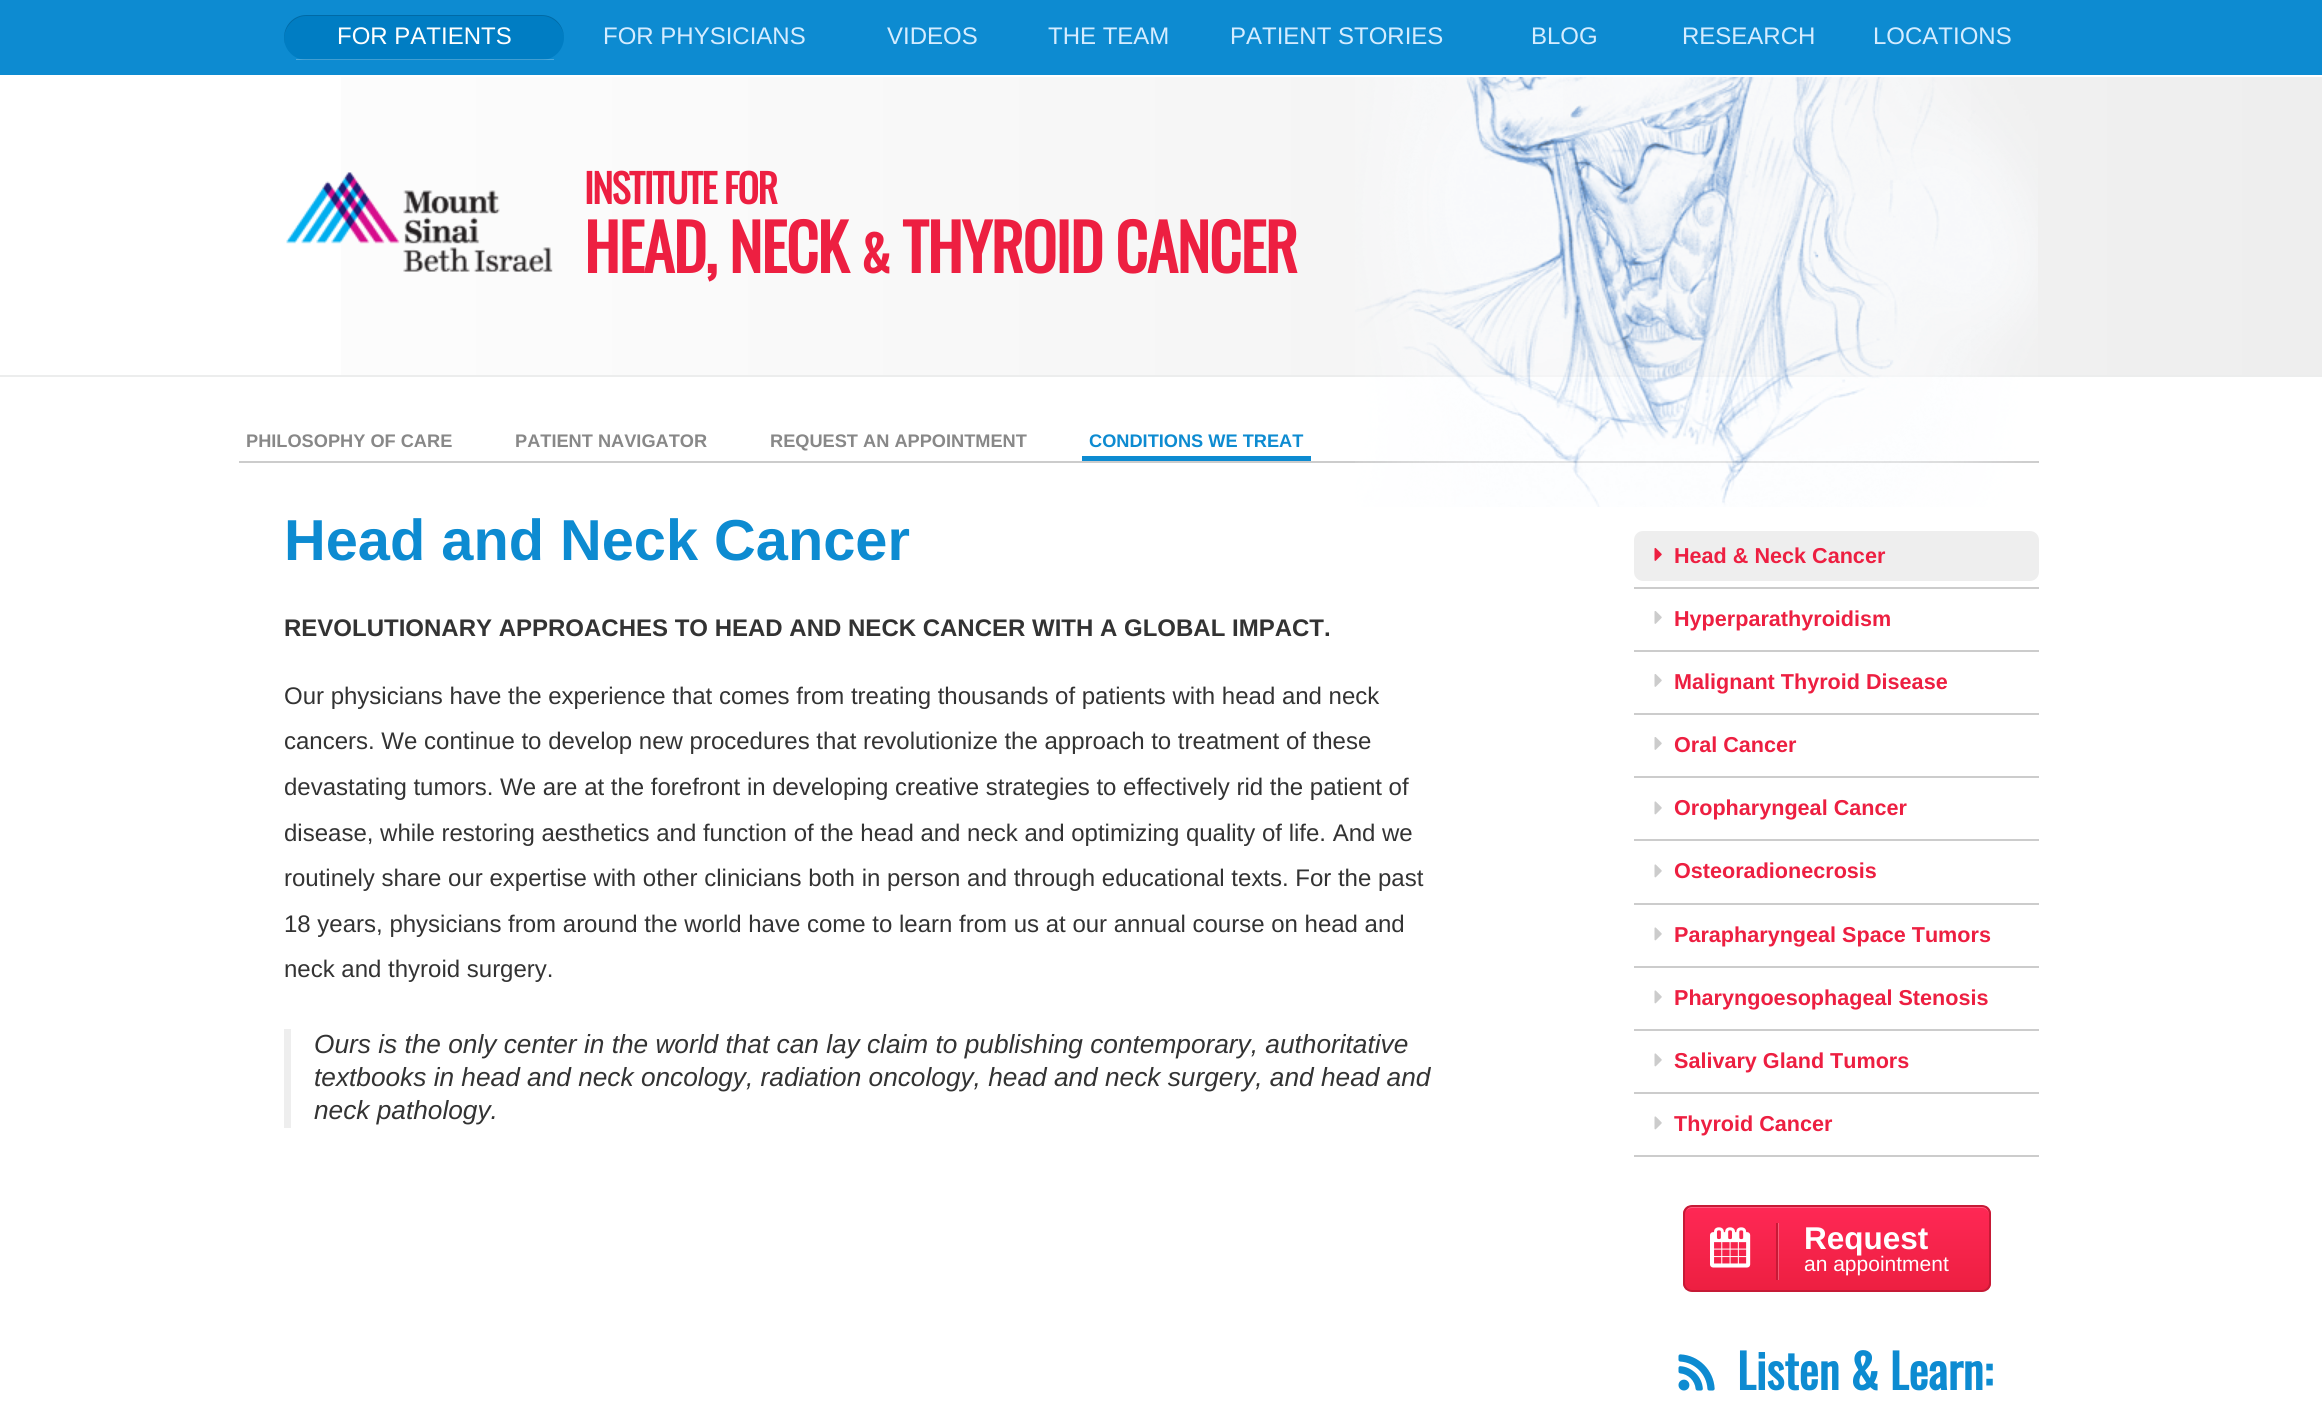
import math
import cairo

surface = cairo.ImageSurface(cairo.FORMAT_RGB24, 2322, 1418)
ctx = cairo.Context(surface)
options = cairo.FontOptions()
options.set_hint_metrics(cairo.HINT_METRICS_OFF)
options.set_hint_style(cairo.HINT_STYLE_NONE)
ctx.set_font_options(options)
ctx.set_miter_limit(4)


def set_color(code):
    ctx.set_source_rgb(*(v / 255 for v in bytes.fromhex(code[-6:])))


def draw_text(x, y, s, family, size, color, bold=False, italic=False):
    ctx.select_font_face(family, cairo.FONT_SLANT_ITALIC if italic else cairo.FONT_SLANT_NORMAL, cairo.FONT_WEIGHT_BOLD if bold else cairo.FONT_WEIGHT_NORMAL)
    ctx.set_font_size(size)
    set_color(color)
    ctx.move_to(x, y)
    ctx.show_text(s)


def draw_spaced(x, y, s, letter, word):
    ctx.move_to(x, y)
    for ch in s:
        ctx.show_text(ch)
        ctx.rel_move_to(letter + word * (ch == ' '), 0)


def fill_rect(x, y, w, h, color):
    set_color(color)
    ctx.rectangle(x, y, w, h)
    ctx.fill()


def rounded_rect(x, y, w, h, r):
    ctx.new_sub_path()
    for i, (u, v) in enumerate([(x + w - r, y + h - r), (x + r, y + h - r), (x + r, y + r), (x + w - r, y + r)]):
        ctx.arc(u, v, r, i * math.pi / 2, (i + 1) * math.pi / 2)
    ctx.close_path()


def draw_image(path, x, y, w, h):
    ctx.save()
    ctx.set_source_surface(cairo.ImageSurface.create_from_png(path), x, y)
    ctx.rectangle(x, y, w, h)
    ctx.fill()
    ctx.restore()


set_color("#ffffff")
ctx.paint()
gradient = cairo.LinearGradient(0, 226, 2322, 226)
gradient.add_color_stop_rgba(0, 1, 1, 1, 1)
gradient.add_color_stop_rgba(1, 0.933, 0.933, 0.933, 1)
ctx.set_source(gradient)
ctx.rectangle(341, 77, 1981, 298)
ctx.fill()
fill_rect(0, 0, 2322, 75, "#0d8bd1")
set_color("#007dc3")
rounded_rect(284, 15, 280, 45, 22.5)
ctx.fill()
ctx.set_source_rgba(0, 0, 0, 0.15)
ctx.new_path()
ctx.move_to(306, 16)
ctx.line_to(542, 16)
ctx.curve_to(554, 16, 564, 27, 564, 38)
ctx.curve_to(564, 25, 554, 15, 542, 15)
ctx.line_to(306, 15)
ctx.curve_to(294, 15, 284, 25, 284, 38)
ctx.curve_to(284, 40, 284, 42, 285, 44)
ctx.curve_to(281, 31, 292, 16, 306, 16)
ctx.close_path()
ctx.fill()
ctx.set_source_rgba(1, 1, 1, 0.25)
ctx.rectangle(296, 59, 258, 1)
ctx.fill()
draw_text(337, 44, "FOR PATIENTS", "Liberation Sans", 24, "#ffffff")
draw_text(603, 44, "FOR PHYSICIANS", "Liberation Sans", 24, "#d4ecff")
draw_text(887, 44, "VIDEOS", "Liberation Sans", 24, "#d4ecff")
draw_text(1048, 44, "THE TEAM", "Liberation Sans", 24, "#d4ecff")
draw_text(1230, 44, "PATIENT STORIES", "Liberation Sans", 24, "#d4ecff")
draw_text(1531, 44, "BLOG", "Liberation Sans", 24, "#d4ecff")
draw_text(1682, 44, "RESEARCH", "Liberation Sans", 24, "#d4ecff")
draw_text(1873, 44, "LOCATIONS", "Liberation Sans", 24, "#d4ecff")
fill_rect(0, 375, 2322, 2, "#eceded")
draw_image("assets/img1.png", 286, 172, 267, 100)
ctx.select_font_face("Oswald", cairo.FONT_SLANT_NORMAL, cairo.FONT_WEIGHT_BOLD)
ctx.set_font_size(39.5)
set_color("#ed1f41")
draw_spaced(584, 204, "INSTITUTE FOR", -1.5, 0)
ctx.set_font_size(64)
draw_spaced(584, 273, "HEAD, NECK", -1.5, 0)
ctx.set_font_size(49)
draw_spaced(861, 273, "&", -1.5, 0)
ctx.set_font_size(64)
draw_spaced(902, 273, "THYROID CANCER", -1.5, 0)
fill_rect(239, 461, 1800, 2, "#cccccc")
draw_image("assets/img2.png", 1355, 77, 683, 430)
draw_text(246, 447, "PHILOSOPHY OF CARE", "Liberation Sans", 18.2, "#888888", bold=True)
draw_text(515, 447, "PATIENT NAVIGATOR", "Liberation Sans", 18.2, "#888888", bold=True)
draw_text(770, 447, "REQUEST AN APPOINTMENT", "Liberation Sans", 18.2, "#888888", bold=True)
fill_rect(1082, 456, 229, 5, "#0d8bd1")
draw_text(1089, 447, "CONDITIONS WE TREAT", "Liberation Sans", 18.2, "#0d8bd1", bold=True)
draw_text(284, 560, "Head and Neck Cancer", "Liberation Sans", 57.75, "#0d8bd1", bold=True)
draw_text(284, 636, "REVOLUTIONARY APPROACHES TO HEAD AND NECK CANCER WITH A GLOBAL IMPACT.", "Liberation Sans", 24, "#333333", bold=True)
draw_text(284, 704, "Our physicians have the experience that comes from treating thousands of patients with head and neck", "Liberation Sans", 24, "#333333")
draw_text(284, 749, "cancers. We continue to develop new procedures that revolutionize the approach to treatment of these", "Liberation Sans", 24, "#333333")
draw_text(284, 795, "devastating tumors. We are at the forefront in developing creative strategies to effectively rid the patient of", "Liberation Sans", 24, "#333333")
draw_text(284, 841, "disease, while restoring aesthetics and function of the head and neck and optimizing quality of life. And we", "Liberation Sans", 24, "#333333")
draw_text(284, 886, "routinely share our expertise with other clinicians both in person and through educational texts. For the past", "Liberation Sans", 24, "#333333")
draw_text(284, 932, "18 years, physicians from around the world have come to learn from us at our annual course on head and", "Liberation Sans", 24, "#333333")
draw_text(284, 977, "neck and thyroid surgery.", "Liberation Sans", 24, "#333333")
fill_rect(284, 1029, 7, 99, "#eeeeee")
draw_text(314, 1053, "Ours is the only center in the world that can lay claim to publishing contemporary, authoritative", "Liberation Sans", 26.25, "#333333", italic=True)
draw_text(314, 1086, "textbooks in head and neck oncology, radiation oncology, head and neck surgery, and head and", "Liberation Sans", 26.25, "#333333", italic=True)
draw_text(314, 1119, "neck pathology.", "Liberation Sans", 26.25, "#333333", italic=True)
fill_rect(1634, 587, 405, 2, "#cccccc")
set_color("#eeeeee")
rounded_rect(1634, 531, 405, 50, 9)
ctx.fill()
draw_image("assets/img3.png", 1654, 547, 8, 14)
draw_text(1674, 563, "Head & Neck Cancer", "Liberation Sans", 21.6, "#ed1f41", bold=True)
fill_rect(1634, 650, 405, 2, "#cccccc")
draw_image("assets/img4.png", 1654, 611, 8, 13)
draw_text(1674, 626, "Hyperparathyroidism", "Liberation Sans", 21.6, "#ed1f41", bold=True)
fill_rect(1634, 713, 405, 2, "#cccccc")
draw_image("assets/img4.png", 1654, 674, 8, 13)
draw_text(1674, 689, "Malignant Thyroid Disease", "Liberation Sans", 21.6, "#ed1f41", bold=True)
fill_rect(1634, 776, 405, 2, "#cccccc")
draw_image("assets/img4.png", 1654, 737, 8, 13)
draw_text(1674, 752, "Oral Cancer", "Liberation Sans", 21.6, "#ed1f41", bold=True)
fill_rect(1634, 839, 405, 2, "#cccccc")
draw_image("assets/img5.png", 1654, 801, 8, 14)
draw_text(1674, 815, "Oropharyngeal Cancer", "Liberation Sans", 21.6, "#ed1f41", bold=True)
fill_rect(1634, 903, 405, 2, "#cccccc")
draw_image("assets/img5.png", 1654, 864, 8, 14)
draw_text(1674, 878, "Osteoradionecrosis", "Liberation Sans", 21.6, "#ed1f41", bold=True)
fill_rect(1634, 966, 405, 2, "#cccccc")
draw_image("assets/img5.png", 1654, 927, 8, 14)
draw_text(1674, 942, "Parapharyngeal Space Tumors", "Liberation Sans", 21.6, "#ed1f41", bold=True)
fill_rect(1634, 1029, 405, 2, "#cccccc")
draw_image("assets/img5.png", 1654, 990, 8, 14)
draw_text(1674, 1005, "Pharyngoesophageal Stenosis", "Liberation Sans", 21.6, "#ed1f41", bold=True)
fill_rect(1634, 1092, 405, 2, "#cccccc")
draw_image("assets/img5.png", 1654, 1053, 8, 14)
draw_text(1674, 1068, "Salivary Gland Tumors", "Liberation Sans", 21.6, "#ed1f41", bold=True)
fill_rect(1634, 1155, 405, 2, "#cccccc")
draw_image("assets/img5.png", 1654, 1116, 8, 14)
draw_text(1674, 1131, "Thyroid Cancer", "Liberation Sans", 21.6, "#ed1f41", bold=True)
ctx.save()
rounded_rect(1683, 1205, 308, 87, 9)
ctx.clip()
gradient = cairo.LinearGradient(1837, 1206, 1837, 1290)
gradient.add_color_stop_rgba(0, 1, 0.157, 0.333, 1)
gradient.add_color_stop_rgba(1, 0.929, 0.122, 0.255, 1)
ctx.set_source(gradient)
ctx.rectangle(1683, 1206, 308, 84)
ctx.fill()
ctx.restore()
set_color("#ff5e7f")
ctx.new_path()
ctx.move_to(1692, 1208)
ctx.line_to(1982, 1208)
ctx.curve_to(1986, 1208, 1989, 1211, 1989, 1215)
ctx.line_to(1989, 1214)
ctx.curve_to(1989, 1210, 1985, 1206, 1981, 1206)
ctx.line_to(1693, 1206)
ctx.curve_to(1690, 1206, 1687, 1208, 1686, 1211)
ctx.curve_to(1687, 1209, 1690, 1208, 1692, 1208)
ctx.close_path()
ctx.fill()
rounded_rect(1684, 1206, 306, 85, 8)
set_color("#c61a36")
ctx.stroke()
ctx.set_source_rgba(1, 1, 1, 0.25)
ctx.new_path()
ctx.move_to(1712, 1280)
ctx.line_to(1779, 1280)
ctx.line_to(1779, 1223)
ctx.line_to(1778, 1223)
ctx.line_to(1778, 1280)
ctx.close_path()
ctx.fill()
fill_rect(1776, 1223, 2, 57, "#c61a36")
draw_image("assets/img6.png", 1710, 1227, 41, 41)
draw_text(1804, 1249, "Request", "Liberation Sans", 31.5, "#ffffff", bold=True)
draw_text(1804, 1271, "an appointment", "Liberation Sans", 21, "#ffffff")
draw_image("assets/img7.png", 1678, 1354, 37, 37)
draw_text(1737, 1390, "Listen & Learn:", "Oswald", 47.25, "#0d8bd1", bold=True)
surface.write_to_png("output.png")
